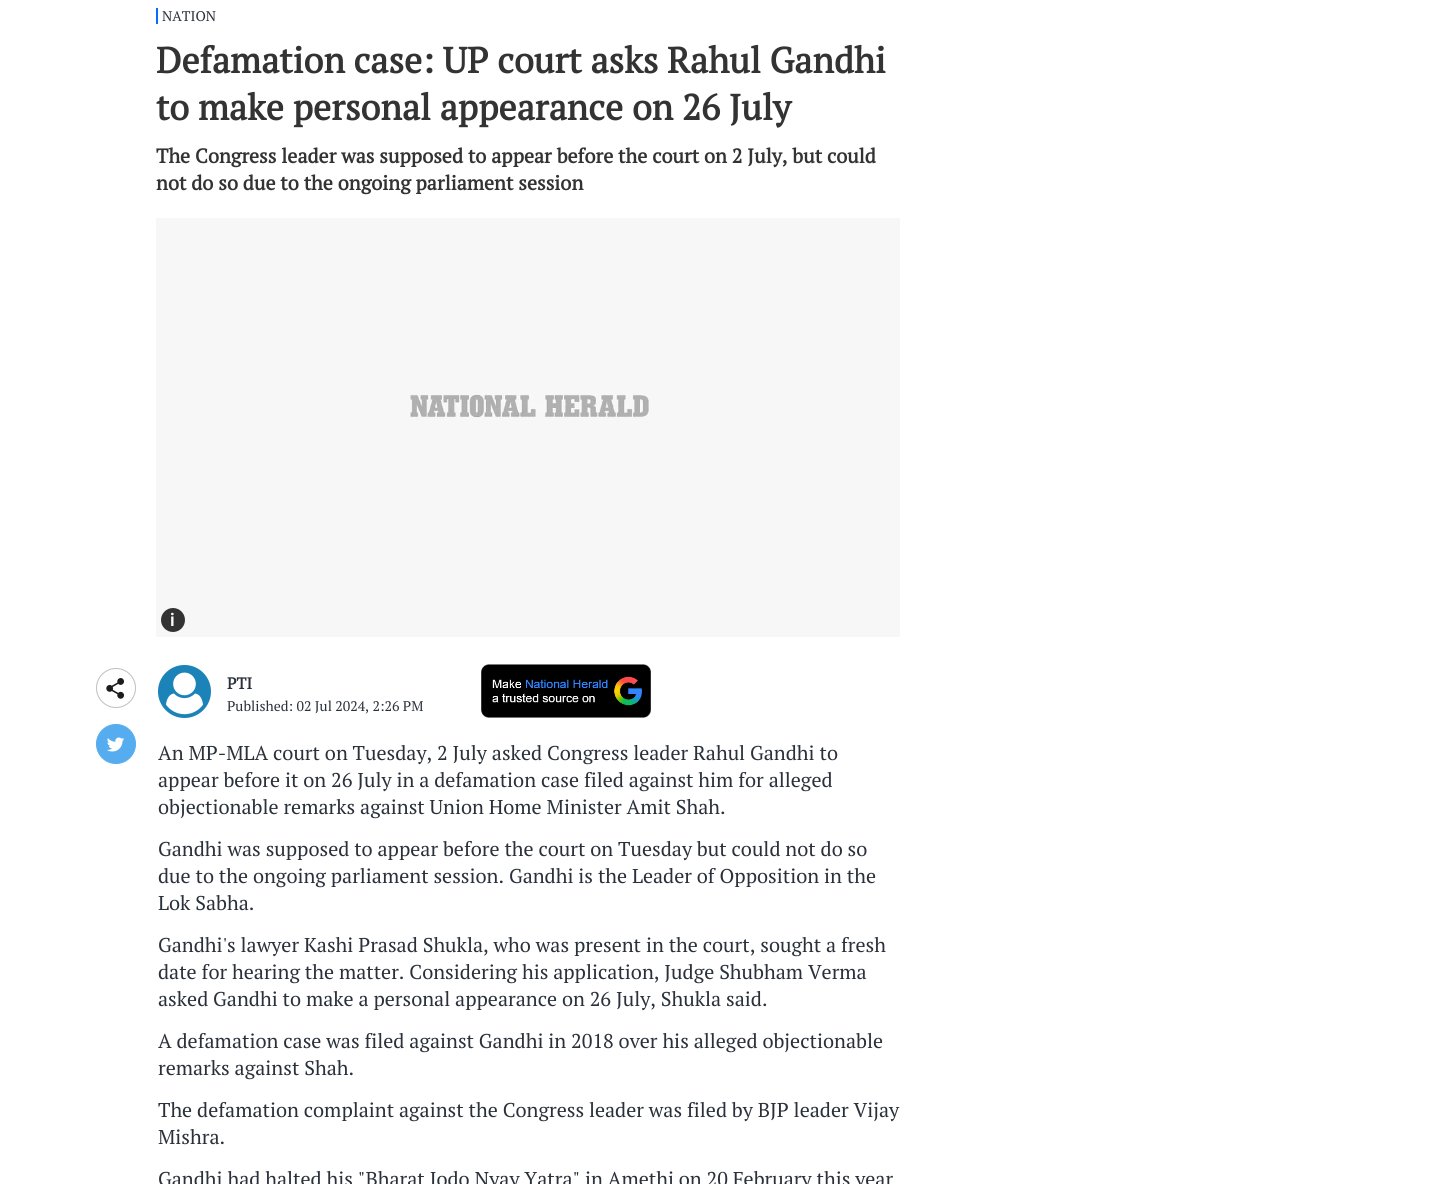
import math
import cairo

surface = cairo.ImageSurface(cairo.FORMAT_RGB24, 1451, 1184)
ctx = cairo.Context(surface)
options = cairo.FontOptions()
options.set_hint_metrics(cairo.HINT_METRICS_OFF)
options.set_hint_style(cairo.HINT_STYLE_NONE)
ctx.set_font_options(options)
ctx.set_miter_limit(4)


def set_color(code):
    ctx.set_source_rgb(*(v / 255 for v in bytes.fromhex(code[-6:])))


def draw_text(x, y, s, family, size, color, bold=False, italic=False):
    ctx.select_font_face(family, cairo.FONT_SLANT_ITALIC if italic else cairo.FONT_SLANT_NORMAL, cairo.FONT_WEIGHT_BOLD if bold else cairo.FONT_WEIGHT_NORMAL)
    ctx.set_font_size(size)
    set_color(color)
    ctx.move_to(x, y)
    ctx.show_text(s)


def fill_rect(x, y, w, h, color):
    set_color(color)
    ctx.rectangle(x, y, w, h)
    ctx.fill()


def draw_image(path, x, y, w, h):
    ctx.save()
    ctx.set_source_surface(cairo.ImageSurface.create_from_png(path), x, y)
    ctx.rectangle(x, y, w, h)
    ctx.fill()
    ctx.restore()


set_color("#ffffff")
ctx.paint()
fill_rect(156, 8, 2, 16, "#056ff7")
draw_text(162, 21, "NATION", "PT Serif", 14, "#2a313b")
draw_text(156, 73, "Defamation case: UP court asks Rahul Gandhi", "PT Serif", 36, "#333333", bold=True)
draw_text(156, 120, "to make personal appearance on 26 July", "PT Serif", 36, "#333333", bold=True)
draw_text(156, 163, "The Congress leader was supposed to appear before the court on 2 July, but could", "PT Serif", 20, "#333333", bold=True)
draw_text(156, 190, "not do so due to the ongoing parliament session", "PT Serif", 20, "#333333", bold=True)
draw_image("assets/img1.png", 156, 218, 744, 419)
ctx.arc(173, 620, 12, 0, 2 * math.pi)
ctx.fill()
draw_text(170, 626, "i", "Roboto SemiBold", 18, "#ffffff")
ctx.new_path()
ctx.arc(116, 688, 19.5, 0, 2 * math.pi)
set_color("#bfbfbf")
ctx.set_line_width(1)
ctx.stroke()
draw_image("assets/img2.png", 106, 678, 19, 21)
set_color("#55acee")
ctx.arc(116, 744, 19.5, 0, 2 * math.pi)
ctx.fill_preserve()
ctx.stroke()
draw_image("assets/img3.png", 107, 737, 18, 15)
draw_image("assets/img4.png", 158, 665, 53, 53)
draw_text(227, 689, "PTI", "PT Serif", 16, "#2a313b", bold=True)
draw_text(227, 711, "Published: 02 Jul 2024, 2:26 PM", "PT Serif", 14, "#2a313b")
draw_image("assets/img5.png", 481, 664, 170, 54)
draw_text(158, 760, "An MP-MLA court on Tuesday, 2 July asked Congress leader Rahul Gandhi to", "PT Serif", 20, "#2a313b")
draw_text(158, 787, "appear before it on 26 July in a defamation case filed against him for alleged", "PT Serif", 20, "#2a313b")
draw_text(158, 814, "objectionable remarks against Union Home Minister Amit Shah.", "PT Serif", 20, "#2a313b")
draw_text(158, 856, "Gandhi was supposed to appear before the court on Tuesday but could not do so", "PT Serif", 20, "#2a313b")
draw_text(158, 883, "due to the ongoing parliament session. Gandhi is the Leader of Opposition in the", "PT Serif", 20, "#2a313b")
draw_text(158, 910, "Lok Sabha.", "PT Serif", 20, "#2a313b")
draw_text(158, 952, "Gandhi's lawyer Kashi Prasad Shukla, who was present in the court, sought a fresh", "PT Serif", 20, "#2a313b")
draw_text(158, 979, "date for hearing the matter. Considering his application, Judge Shubham Verma", "PT Serif", 20, "#2a313b")
draw_text(158, 1006, "asked Gandhi to make a personal appearance on 26 July, Shukla said.", "PT Serif", 20, "#2a313b")
draw_text(158, 1048, "A defamation case was filed against Gandhi in 2018 over his alleged objectionable", "PT Serif", 20, "#2a313b")
draw_text(158, 1075, "remarks against Shah.", "PT Serif", 20, "#2a313b")
draw_text(158, 1117, "The defamation complaint against the Congress leader was filed by BJP leader Vijay", "PT Serif", 20, "#2a313b")
draw_text(158, 1144, "Mishra.", "PT Serif", 20, "#2a313b")
draw_text(158, 1186, "Gandhi had halted his \"Bharat Jodo Nyay Yatra\" in Amethi on 20 February this year", "PT Serif", 20, "#2a313b")
surface.write_to_png("output.png")
